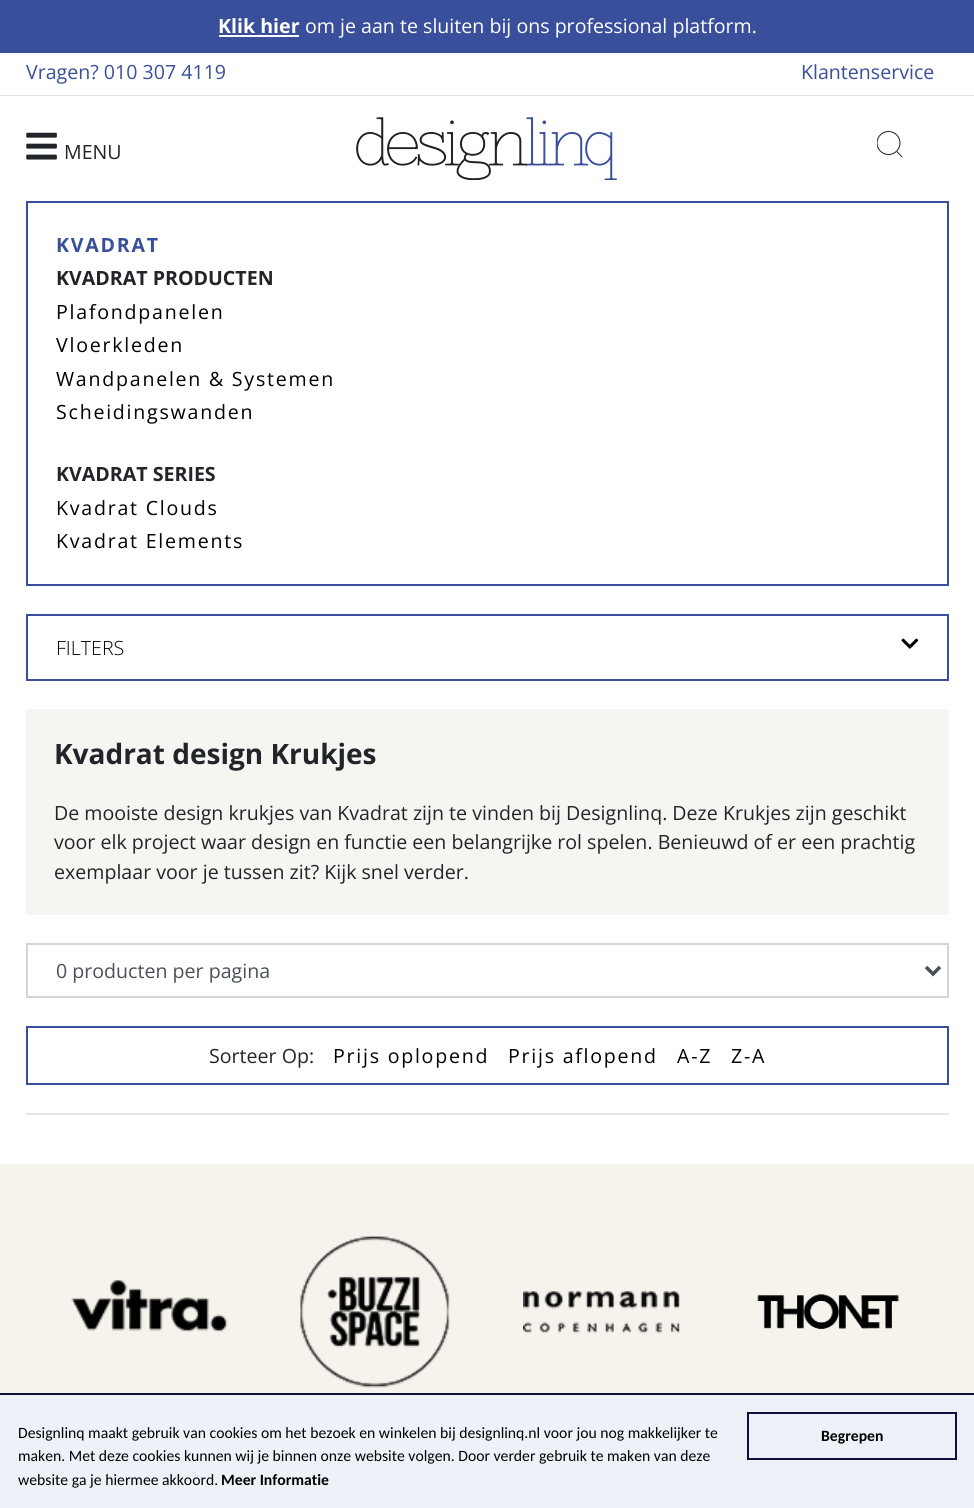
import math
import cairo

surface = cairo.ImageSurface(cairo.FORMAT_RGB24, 974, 1508)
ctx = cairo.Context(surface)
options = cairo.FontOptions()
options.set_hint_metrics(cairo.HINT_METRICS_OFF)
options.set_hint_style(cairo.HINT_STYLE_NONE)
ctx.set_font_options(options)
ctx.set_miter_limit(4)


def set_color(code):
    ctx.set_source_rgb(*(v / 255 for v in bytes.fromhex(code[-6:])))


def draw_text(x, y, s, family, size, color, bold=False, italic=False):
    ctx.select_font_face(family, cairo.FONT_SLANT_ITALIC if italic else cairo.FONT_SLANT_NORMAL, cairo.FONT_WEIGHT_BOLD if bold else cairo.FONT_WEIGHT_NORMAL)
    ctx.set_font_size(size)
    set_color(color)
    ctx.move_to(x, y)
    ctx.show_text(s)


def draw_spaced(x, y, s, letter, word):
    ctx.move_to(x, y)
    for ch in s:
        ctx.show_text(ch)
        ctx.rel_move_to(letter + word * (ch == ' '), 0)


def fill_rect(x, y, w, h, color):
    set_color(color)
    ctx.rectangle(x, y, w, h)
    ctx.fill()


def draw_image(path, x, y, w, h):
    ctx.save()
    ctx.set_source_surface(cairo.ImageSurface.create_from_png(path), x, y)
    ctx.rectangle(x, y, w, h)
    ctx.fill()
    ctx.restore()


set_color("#ffffff")
ctx.paint()
fill_rect(0, 0, 974, 53, "#394f9b")
draw_text(218, 33, "Klik hier", "Open Sans", 19.6, "#ffffff", bold=True)
fill_rect(219, 35, 80, 2, "#ffffff")
draw_text(305, 33, "om je aan te sluiten bij ons professional platform.", "Open Sans", 19.6, "#ffffff")
fill_rect(0, 95, 974, 1, "#e1e1e1")
draw_text(26, 79, "Vragen? 010 307 4119", "Open Sans", 19.6, "#394f9b")
draw_text(801, 79, "Klantenservice", "Open Sans", 19.6, "#394f9b")
draw_image("assets/img1.png", 26, 132, 31, 28)
draw_text(64, 159, "MENU", "Open Sans", 19.6, "#212529")
draw_image("assets/img2.png", 356, 117, 261, 63)
draw_image("assets/img3.png", 877, 131, 26, 27)
ctx.rectangle(27, 202, 921, 383)
set_color("#394f9b")
ctx.stroke()
ctx.select_font_face("Open Sans", cairo.FONT_SLANT_NORMAL, cairo.FONT_WEIGHT_BOLD)
draw_spaced(56, 252, "KVADRAT", 1.75, 0)
draw_text(56, 285, "KVADRAT PRODUCTEN", "Open Sans", 19.6, "#212529", bold=True)
ctx.select_font_face("Open Sans")
set_color("#000000")
draw_spaced(56, 319, "Plafondpanelen", 1.75, 0)
draw_spaced(56, 352, "Vloerkleden", 1.75, 0)
draw_spaced(56, 386, "Wandpanelen & Systemen", 1.75, 0)
draw_spaced(56, 419, "Scheidingswanden", 1.75, 0)
draw_text(56, 481, "KVADRAT SERIES", "Open Sans", 19.6, "#212529", bold=True)
ctx.select_font_face("Open Sans")
set_color("#000000")
draw_spaced(56, 515, "Kvadrat Clouds", 1.75, 0)
draw_spaced(56, 548, "Kvadrat Elements", 1.75, 0)
ctx.rectangle(27, 615, 921, 65)
set_color("#394f9b")
ctx.stroke()
draw_text(56, 655, "FILTERS", "Open Sans Light", 19.6, "#000000")
draw_image("assets/img4.png", 901, 638, 18, 11)
fill_rect(26, 709, 923, 206, "#f5f5f2")
draw_text(54, 764, "Kvadrat design Krukjes", "Open Sans", 28, "#212529", bold=True)
draw_text(54, 820, "De mooiste design krukjes van Kvadrat zijn te vinden bij Designlinq. Deze Krukjes zijn geschikt", "Open Sans", 19.6, "#212529")
draw_text(54, 849, "voor elk project waar design en functie een belangrijke rol spelen. Benieuwd of er een prachtig", "Open Sans", 19.6, "#212529")
draw_text(54, 879, "exemplaar voor je tussen zit? Kijk snel verder.", "Open Sans", 19.6, "#212529")
ctx.rectangle(27, 944, 921, 53)
set_color("#ced4da")
ctx.stroke()
ctx.new_path()
ctx.move_to(926, 967)
ctx.line_to(933, 974)
ctx.line_to(940, 967)
set_color("#495057")
ctx.set_line_width(3.5)
ctx.stroke()
draw_text(56, 978, "0 producten per pagina", "Open Sans", 19.6, "#495057")
ctx.rectangle(27, 1027, 921, 57)
set_color("#394f9b")
ctx.set_line_width(2)
ctx.stroke()
draw_text(209, 1063, "Sorteer Op:", "Open Sans", 19.6, "#212529")
set_color("#000000")
draw_spaced(333, 1063, "Prijs oplopend", 1.75, 0)
draw_spaced(508, 1063, "Prijs aflopend", 1.75, 0)
draw_spaced(677, 1063, "A-Z", 1.75, 0)
draw_spaced(731, 1063, "Z-A", 1.75, 0)
fill_rect(26, 1113, 923, 2, "#e6e6e6")
fill_rect(0, 1164, 974, 229, "#f6f3ed")
draw_image("assets/img5.png", 71, 1280, 157, 52)
draw_image("assets/img6.png", 300, 1236, 150, 152)
draw_image("assets/img7.png", 523, 1291, 157, 43)
draw_image("assets/img8.png", 757, 1294, 142, 36)
fill_rect(0, 1395, 974, 113, "#edf2f9")
fill_rect(0, 1393, 974, 2, "#11113f")
draw_text(18, 1438, "Designlinq maakt gebruik van cookies om het bezoek en winkelen bij designlinq.nl voor jou nog makkelijker te", "Carlito", 15.7, "#000000")
draw_text(18, 1461, "maken. Met deze cookies kunnen wij je binnen onze website volgen. Door verder gebruik te maken van deze", "Carlito", 15.7, "#000000")
draw_text(18, 1485, "website ga je hiermee akkoord.", "Carlito", 15.7, "#000000")
draw_text(221, 1485, "Meer Informatie", "Carlito", 15.7, "#000000", bold=True)
ctx.rectangle(748, 1413, 208, 46)
set_color("#11113f")
ctx.stroke()
draw_text(821, 1441, "Begrepen", "Carlito", 15.7, "#000000", bold=True)
surface.write_to_png("output.png")
